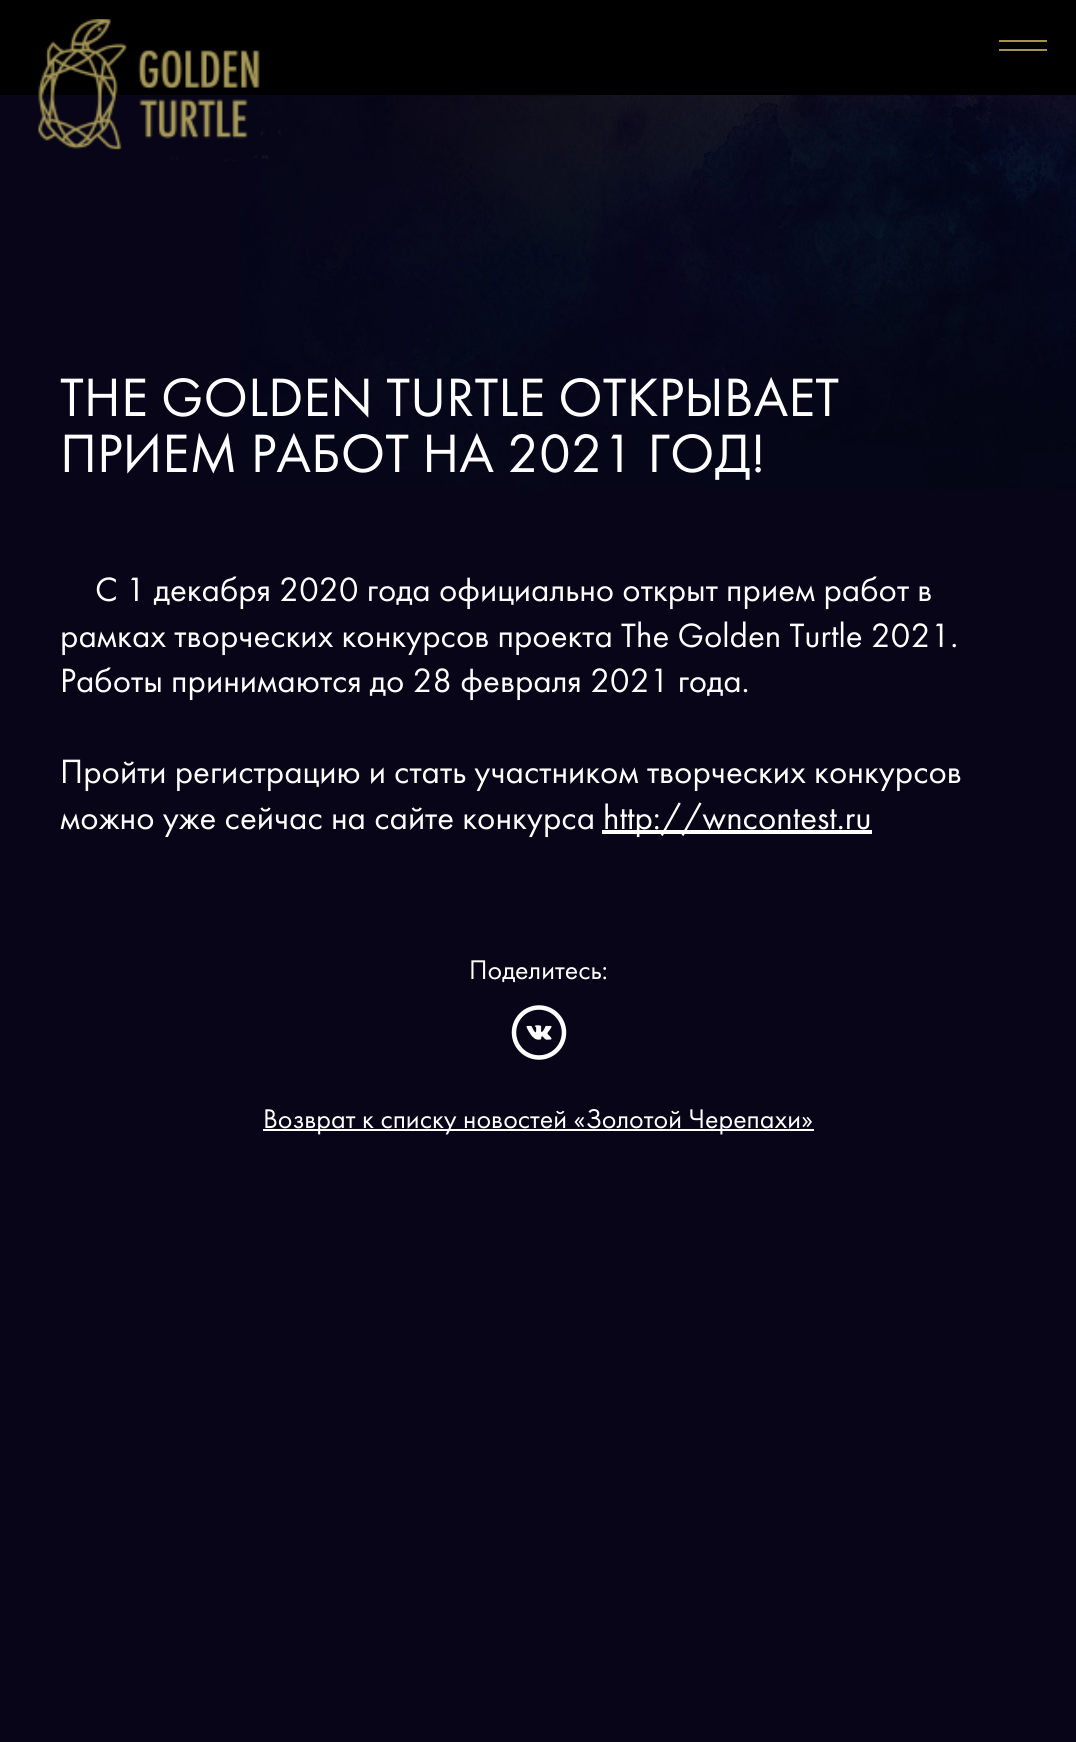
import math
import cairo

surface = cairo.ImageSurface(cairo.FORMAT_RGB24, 1076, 1742)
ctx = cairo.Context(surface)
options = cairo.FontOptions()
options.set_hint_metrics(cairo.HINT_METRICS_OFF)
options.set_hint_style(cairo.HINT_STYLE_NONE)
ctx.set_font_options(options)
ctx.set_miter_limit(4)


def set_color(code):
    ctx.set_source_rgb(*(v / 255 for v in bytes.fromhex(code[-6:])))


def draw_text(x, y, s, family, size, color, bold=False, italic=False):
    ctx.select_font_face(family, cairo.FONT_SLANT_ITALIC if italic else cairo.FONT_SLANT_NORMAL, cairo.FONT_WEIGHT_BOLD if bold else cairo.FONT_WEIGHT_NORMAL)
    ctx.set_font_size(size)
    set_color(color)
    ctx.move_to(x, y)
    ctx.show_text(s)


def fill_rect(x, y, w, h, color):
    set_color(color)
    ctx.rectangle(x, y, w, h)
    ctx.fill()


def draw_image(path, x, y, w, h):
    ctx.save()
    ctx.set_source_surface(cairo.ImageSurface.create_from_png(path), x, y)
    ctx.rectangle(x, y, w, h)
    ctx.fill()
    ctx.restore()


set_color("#070517")
ctx.paint()
draw_image("assets/img1.png", 239, 95, 837, 395)
fill_rect(0, 0, 1076, 95, "#000000")
draw_image("assets/img2.png", 38, 19, 244, 142)
fill_rect(999, 40, 48, 2, "#a69052")
fill_rect(999, 49, 48, 2, "#a69052")
draw_text(60, 416, "THE GOLDEN TURTLE ОТКРЫВАЕТ", "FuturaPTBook", 56, "#ffffff")
draw_text(60, 472, "ПРИЕМ РАБОТ НА 2021 ГОД!", "FuturaPTBook", 56, "#ffffff")
draw_text(95, 601, "С 1 декабря 2020 года официально открыт прием работ в", "FuturaPTBook", 35, "#ffffff")
draw_text(60, 647, "рамках творческих конкурсов проекта The Golden Turtle 2021.", "FuturaPTBook", 35, "#ffffff")
draw_text(60, 692, "Работы принимаются до 28 февраля 2021 года.", "FuturaPTBook", 35, "#ffffff")
draw_text(60, 783, "Пройти регистрацию и стать участником творческих конкурсов", "FuturaPTBook", 35, "#ffffff")
draw_text(60, 829, "можно уже сейчас на сайте конкурса", "FuturaPTBook", 35, "#ffffff")
fill_rect(602, 830, 270, 4, "#ffffff")
draw_text(603, 829, "http://wncontest.ru", "FuturaPTBook", 35, "#ffffff")
draw_text(469, 979, "Поделитесь:", "FuturaPTBook", 28, "#ffffff")
draw_image("assets/img3.png", 511, 1005, 56, 55)
fill_rect(263, 1129, 551, 2, "#ffffff")
draw_text(263, 1128, "Возврат к списку новостей «Золотой Черепахи»", "FuturaPTBook", 28, "#ffffff")
surface.write_to_png("output.png")
